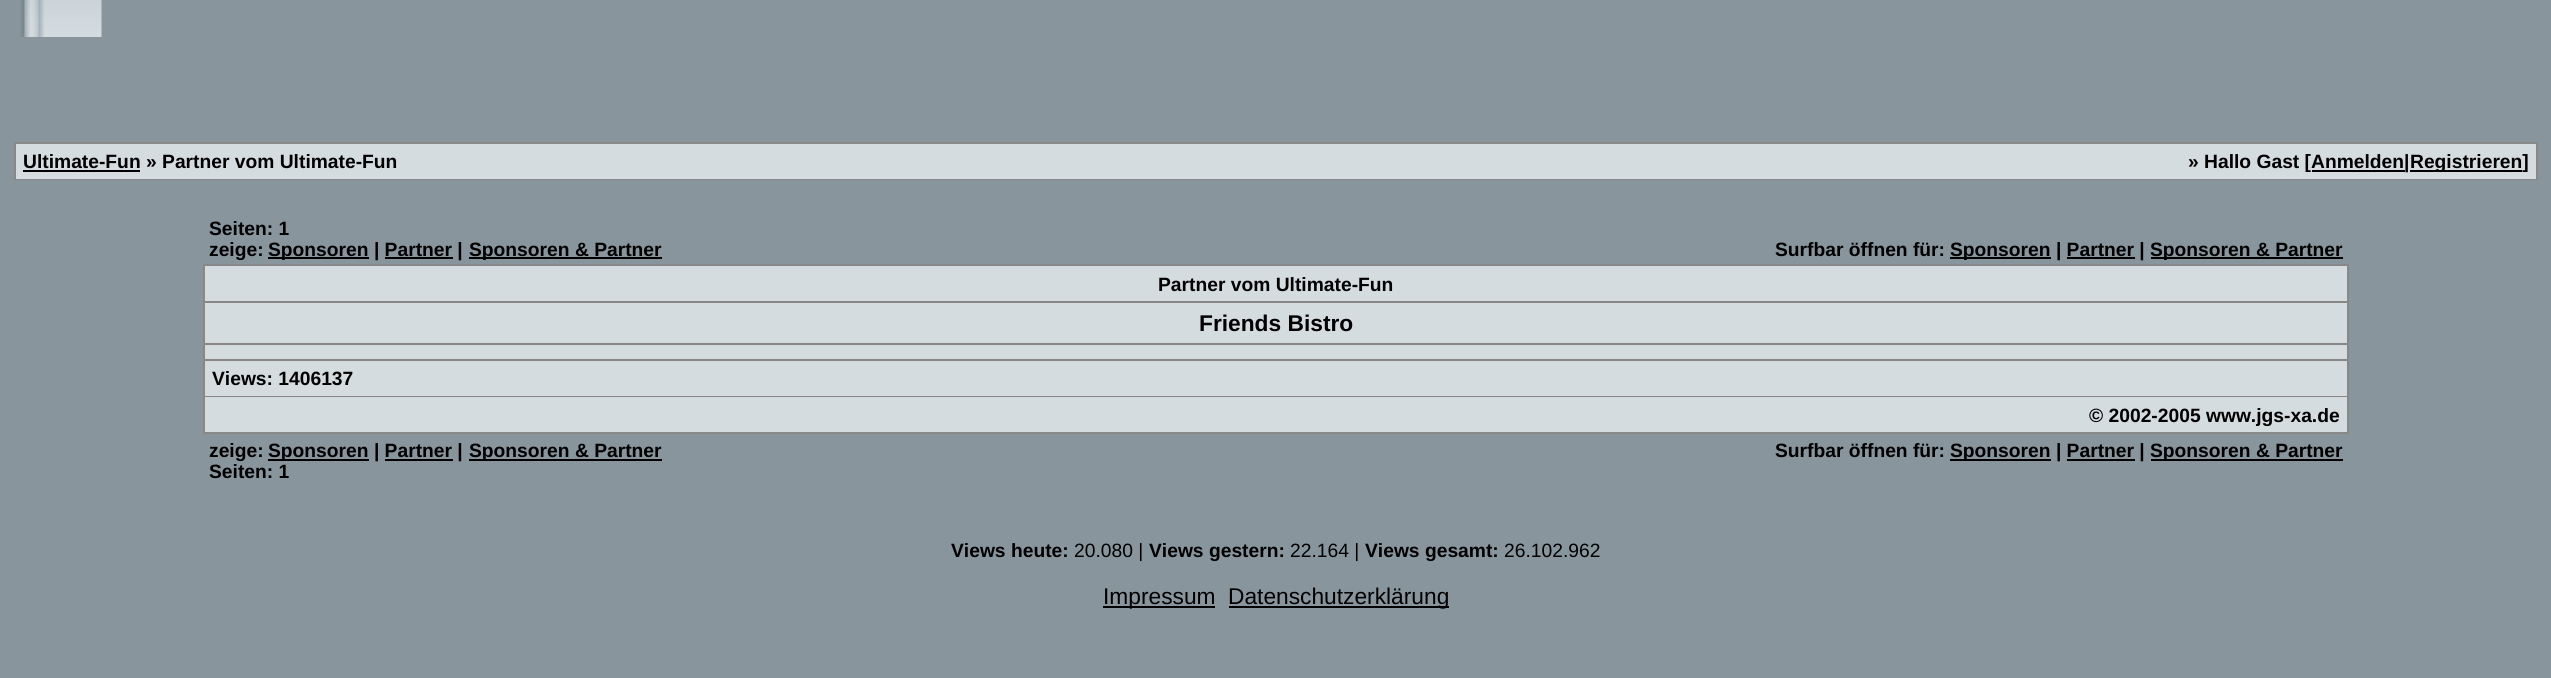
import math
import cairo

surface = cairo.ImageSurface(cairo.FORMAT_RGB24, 2551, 678)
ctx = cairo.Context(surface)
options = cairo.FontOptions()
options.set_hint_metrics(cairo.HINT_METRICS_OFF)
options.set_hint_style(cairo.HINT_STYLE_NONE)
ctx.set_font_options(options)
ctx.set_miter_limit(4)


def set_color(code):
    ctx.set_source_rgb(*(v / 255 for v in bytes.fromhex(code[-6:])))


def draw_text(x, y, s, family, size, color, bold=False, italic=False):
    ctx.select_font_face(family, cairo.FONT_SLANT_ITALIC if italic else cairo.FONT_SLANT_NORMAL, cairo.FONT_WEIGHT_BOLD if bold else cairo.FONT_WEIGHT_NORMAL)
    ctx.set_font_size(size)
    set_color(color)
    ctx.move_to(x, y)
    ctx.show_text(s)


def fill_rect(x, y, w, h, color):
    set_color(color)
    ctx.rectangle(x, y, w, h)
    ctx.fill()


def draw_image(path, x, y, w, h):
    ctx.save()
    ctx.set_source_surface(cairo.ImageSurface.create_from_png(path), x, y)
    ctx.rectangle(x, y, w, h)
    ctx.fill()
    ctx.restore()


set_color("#88959d")
ctx.paint()
draw_image("assets/img1.png", 20, 0, 82, 37)
fill_rect(14, 142, 2524, 38, "#888888")
fill_rect(16, 144, 2520, 35, "#d5dce0")
draw_text(23, 168, "Ultimate-Fun » Partner vom Ultimate-Fun", "Liberation Sans", 19.25, "#000000", bold=True)
fill_rect(23, 170, 117, 2, "#000000")
draw_text(2188, 168, "» Hallo Gast [Anmelden|", "Liberation Sans", 19.25, "#000000", bold=True)
fill_rect(2312, 170, 93, 2, "#000000")
fill_rect(2410, 170, 112, 2, "#000000")
draw_text(2410, 168, "Registrieren]", "Liberation Sans", 19.25, "#000000", bold=True)
draw_text(209, 235, "Seiten: 1", "Liberation Sans", 19.25, "#000000", bold=True)
draw_text(209, 256, "zeige:", "Liberation Sans", 19.25, "#000000", bold=True)
fill_rect(268, 257, 101, 2, "#000000")
draw_text(268, 256, "Sponsoren | Partner |", "Liberation Sans", 19.25, "#000000", bold=True)
fill_rect(385, 257, 68, 2, "#000000")
fill_rect(469, 257, 193, 2, "#000000")
draw_text(469, 256, "Sponsoren & Partner", "Liberation Sans", 19.25, "#000000", bold=True)
draw_text(1775, 256, "Surfbar öffnen für:", "Liberation Sans", 19.25, "#000000", bold=True)
fill_rect(1950, 257, 101, 2, "#000000")
draw_text(1950, 256, "Sponsoren | Partner |", "Liberation Sans", 19.25, "#000000", bold=True)
fill_rect(2067, 257, 68, 2, "#000000")
fill_rect(2151, 257, 192, 2, "#000000")
draw_text(2150, 256, "Sponsoren & Partner", "Liberation Sans", 19.25, "#000000", bold=True)
fill_rect(203, 264, 2146, 170, "#888888")
fill_rect(205, 266, 2142, 35, "#d5dce0")
draw_text(1158, 291, "Partner vom Ultimate-Fun", "Liberation Sans", 19.25, "#000000", bold=True)
fill_rect(205, 303, 2142, 40, "#d5dce0")
draw_text(1199, 331, "Friends Bistro", "Liberation Sans", 22.75, "#000000", bold=True)
fill_rect(205, 345, 2142, 14, "#d5dce0")
fill_rect(205, 361, 2142, 35, "#d5dce0")
draw_text(212, 385, "Views: 1406137", "Liberation Sans", 19.25, "#000000", bold=True)
fill_rect(205, 397, 2142, 35, "#d5dce0")
draw_text(2089, 422, "© 2002-2005 www.jgs-xa.de", "Liberation Sans", 19.25, "#000000", bold=True)
draw_text(209, 457, "zeige:", "Liberation Sans", 19.25, "#000000", bold=True)
fill_rect(268, 459, 101, 2, "#000000")
draw_text(268, 457, "Sponsoren | Partner |", "Liberation Sans", 19.25, "#000000", bold=True)
fill_rect(385, 459, 68, 2, "#000000")
fill_rect(469, 459, 193, 2, "#000000")
draw_text(469, 457, "Sponsoren & Partner", "Liberation Sans", 19.25, "#000000", bold=True)
draw_text(209, 478, "Seiten: 1", "Liberation Sans", 19.25, "#000000", bold=True)
draw_text(1775, 457, "Surfbar öffnen für:", "Liberation Sans", 19.25, "#000000", bold=True)
fill_rect(1950, 459, 101, 2, "#000000")
draw_text(1950, 457, "Sponsoren | Partner |", "Liberation Sans", 19.25, "#000000", bold=True)
fill_rect(2067, 459, 68, 2, "#000000")
fill_rect(2151, 459, 192, 2, "#000000")
draw_text(2150, 457, "Sponsoren & Partner", "Liberation Sans", 19.25, "#000000", bold=True)
draw_text(951, 557, "Views heute:", "Liberation Sans", 19.25, "#000000", bold=True)
draw_text(1074, 557, "20.080 |", "Liberation Sans", 19.25, "#000000")
draw_text(1149, 557, "Views gestern:", "Liberation Sans", 19.25, "#000000", bold=True)
draw_text(1290, 557, "22.164 |", "Liberation Sans", 19.25, "#000000")
draw_text(1365, 557, "Views gesamt:", "Liberation Sans", 19.25, "#000000", bold=True)
draw_text(1504, 557, "26.102.962", "Liberation Sans", 19.25, "#000000")
fill_rect(1103, 606, 112, 2, "#000000")
draw_text(1103, 604, "Impressum", "Liberation Sans", 22.75, "#000000")
fill_rect(1229, 606, 220, 2, "#000000")
draw_text(1228, 604, "Datenschutzerklärung", "Liberation Sans", 22.75, "#000000")
surface.write_to_png("output.png")
